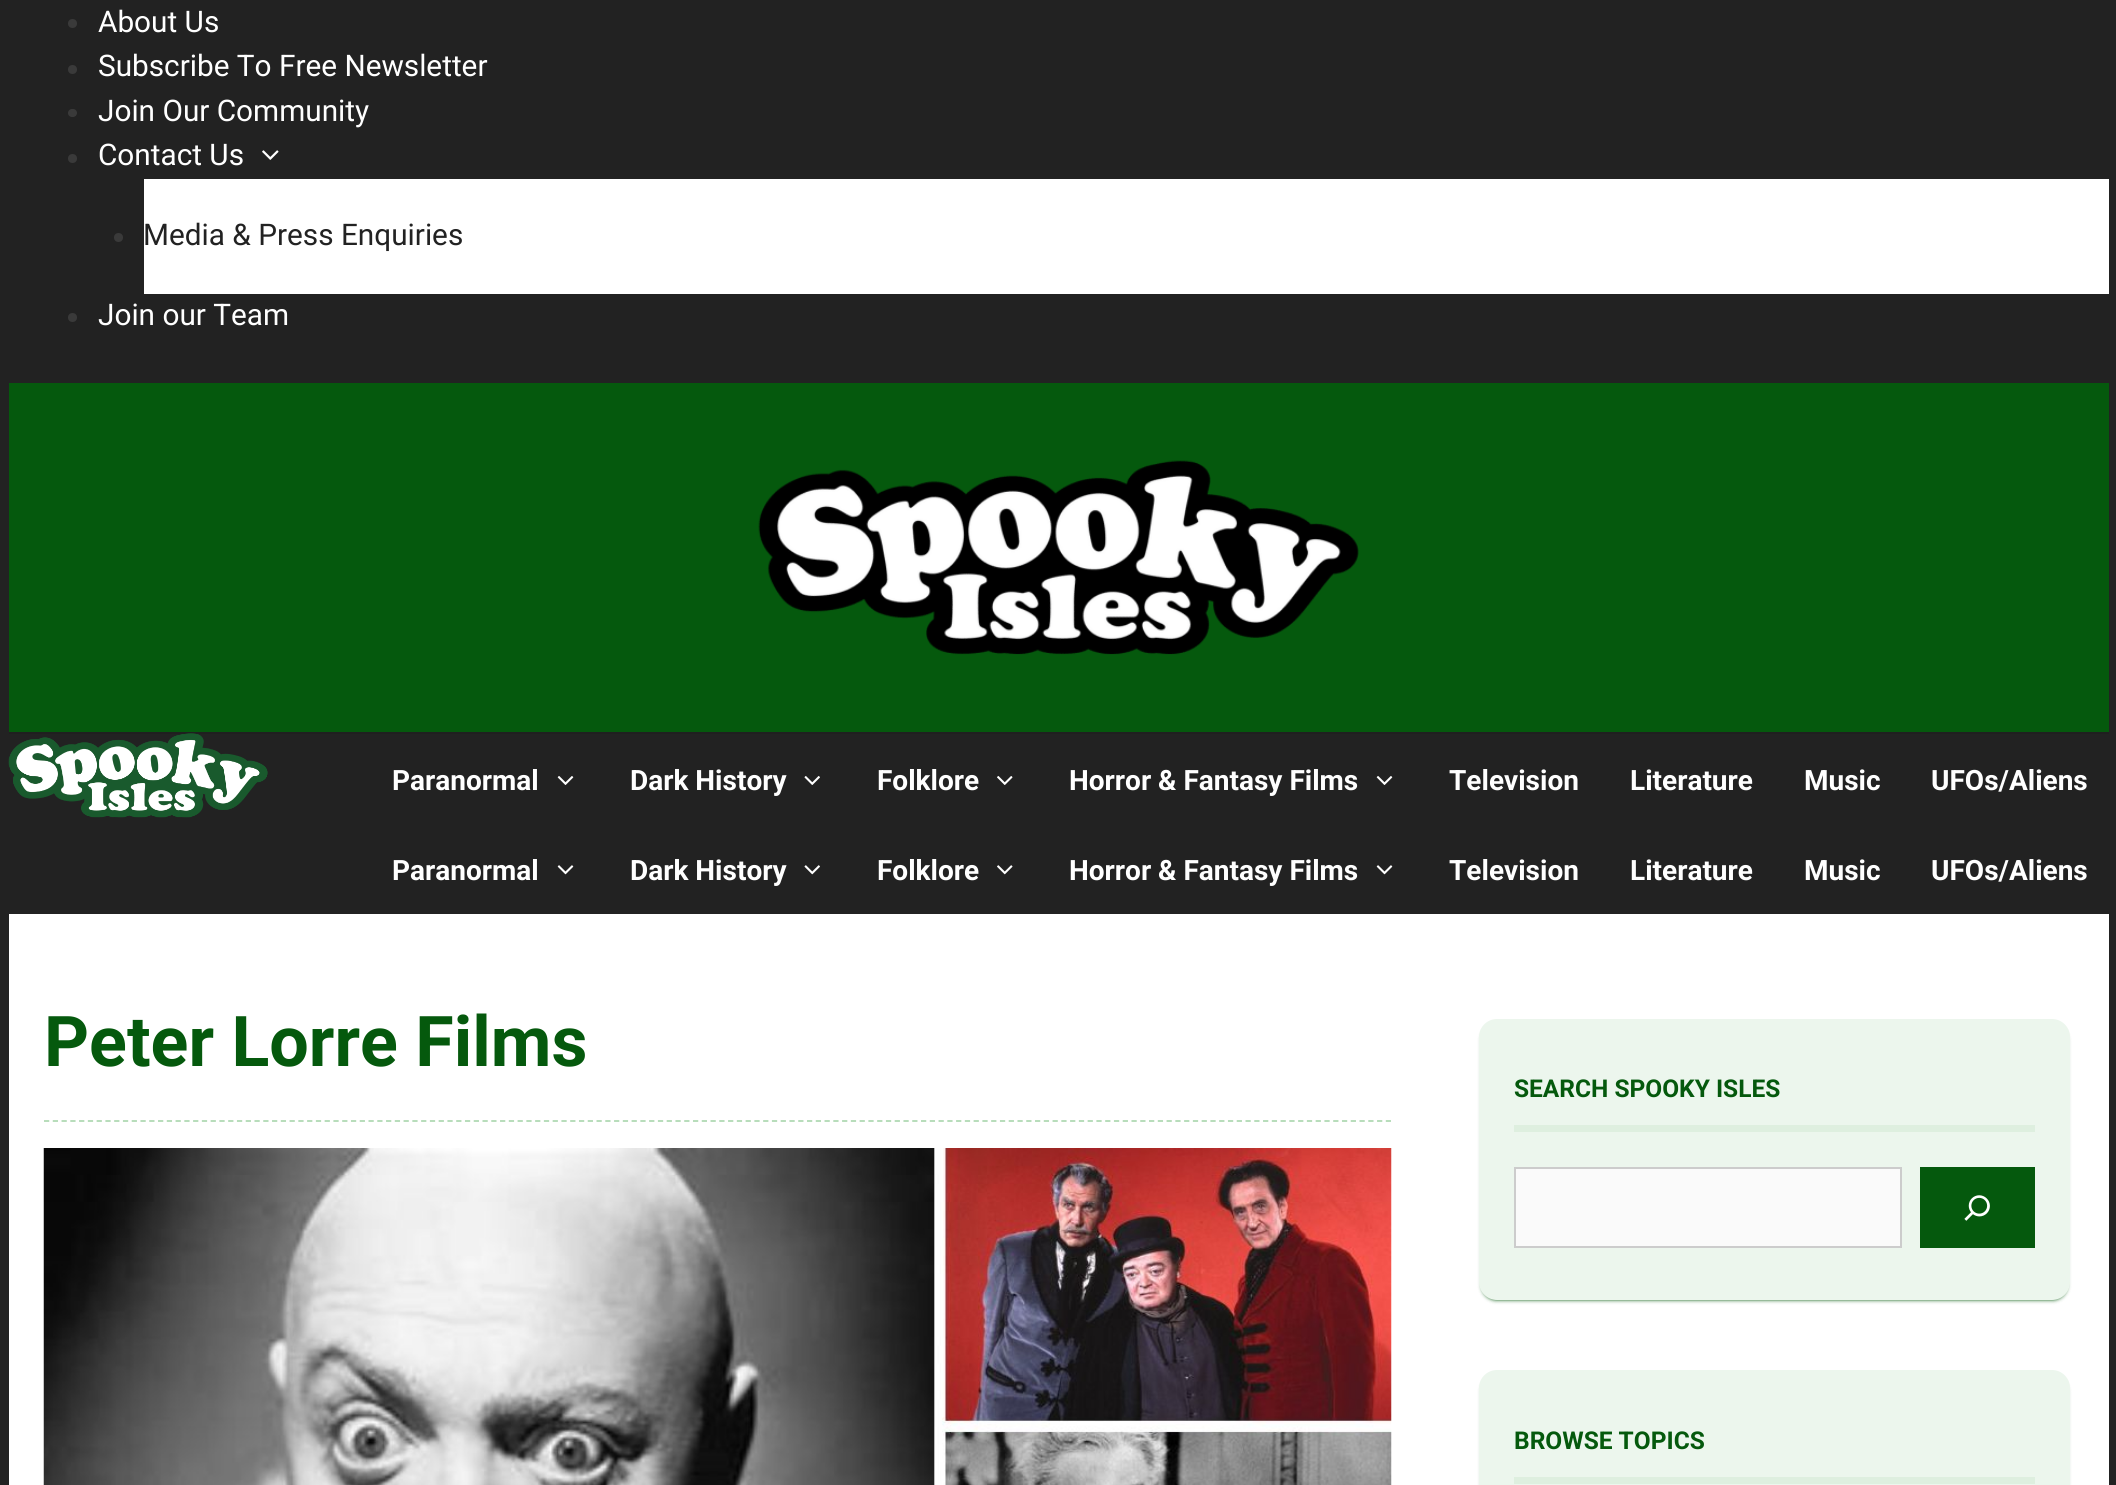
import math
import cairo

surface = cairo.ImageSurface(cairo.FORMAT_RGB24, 2116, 1485)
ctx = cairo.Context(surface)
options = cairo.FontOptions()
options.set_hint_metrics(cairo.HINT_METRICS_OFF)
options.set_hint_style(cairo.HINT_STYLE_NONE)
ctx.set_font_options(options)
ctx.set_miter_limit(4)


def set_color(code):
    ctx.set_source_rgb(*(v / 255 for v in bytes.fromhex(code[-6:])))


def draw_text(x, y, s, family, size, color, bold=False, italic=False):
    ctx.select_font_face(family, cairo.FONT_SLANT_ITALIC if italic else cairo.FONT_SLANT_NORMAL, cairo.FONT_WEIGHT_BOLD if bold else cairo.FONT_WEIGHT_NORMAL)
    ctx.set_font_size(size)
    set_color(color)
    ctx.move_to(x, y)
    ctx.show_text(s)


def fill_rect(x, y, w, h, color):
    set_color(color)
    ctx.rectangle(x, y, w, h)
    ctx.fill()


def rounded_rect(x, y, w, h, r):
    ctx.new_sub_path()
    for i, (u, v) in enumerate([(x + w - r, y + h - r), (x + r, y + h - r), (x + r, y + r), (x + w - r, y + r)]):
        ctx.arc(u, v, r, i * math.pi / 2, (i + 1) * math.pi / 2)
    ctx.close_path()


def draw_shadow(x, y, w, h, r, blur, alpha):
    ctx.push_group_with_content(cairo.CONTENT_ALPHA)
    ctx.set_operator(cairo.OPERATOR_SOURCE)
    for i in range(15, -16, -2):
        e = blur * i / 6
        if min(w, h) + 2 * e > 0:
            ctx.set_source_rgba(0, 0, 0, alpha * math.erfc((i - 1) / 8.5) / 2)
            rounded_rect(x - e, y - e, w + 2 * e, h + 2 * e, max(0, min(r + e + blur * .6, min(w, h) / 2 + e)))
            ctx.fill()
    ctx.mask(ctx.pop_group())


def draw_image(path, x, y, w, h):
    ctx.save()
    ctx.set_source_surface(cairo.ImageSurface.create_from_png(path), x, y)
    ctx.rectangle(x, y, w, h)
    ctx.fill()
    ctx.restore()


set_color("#222222")
ctx.paint()
set_color("#3a3a3a")
ctx.arc(72.5, 23.5, 4.5, 0, 2 * math.pi)
ctx.fill()
draw_text(98, 32, "About Us", "Roboto", 29.75, "#ffffff")
set_color("#3a3a3a")
ctx.new_path()
ctx.arc(72.5, 69.5, 4.5, 0, 2 * math.pi)
ctx.fill()
draw_text(98, 76, "Subscribe To Free Newsletter", "Roboto", 29.75, "#ffffff")
set_color("#3a3a3a")
rounded_rect(68, 109, 9, 8, 4)
ctx.fill()
draw_text(98, 121, "Join Our Community", "Roboto", 29.75, "#ffffff")
set_color("#3a3a3a")
ctx.new_path()
ctx.arc(72.5, 158.5, 4.5, 0, 2 * math.pi)
ctx.fill()
draw_text(98, 165, "Contact Us", "Roboto", 29.75, "#ffffff")
draw_image("assets/img1.png", 262, 150, 17, 10)
fill_rect(144, 179, 1965, 115, "#ffffff")
set_color("#3a3a3a")
ctx.arc(118.5, 237.5, 4.5, 0, 2 * math.pi)
ctx.fill()
draw_text(143, 245, "Media & Press Enquiries", "Roboto", 29.75, "#222222")
set_color("#3a3a3a")
ctx.new_path()
ctx.arc(72.5, 317.5, 4.5, 0, 2 * math.pi)
ctx.fill()
draw_text(98, 325, "Join our Team", "Roboto", 29.75, "#ffffff")
fill_rect(9, 732, 2100, 2, "#1f1f1f")
fill_rect(9, 383, 2100, 349, "#05590d")
draw_image("assets/img2.png", 758, 460, 601, 195)
draw_image("assets/img3.png", 8, 733, 260, 85)
draw_text(392, 790, "Paranormal", "Roboto", 28, "#ffffff", bold=True)
draw_image("assets/img4.png", 557, 776, 17, 9)
draw_text(630, 790, "Dark History", "Roboto", 28, "#ffffff", bold=True)
draw_image("assets/img5.png", 804, 776, 16, 9)
draw_text(877, 790, "Folklore", "Roboto", 28, "#ffffff", bold=True)
draw_image("assets/img6.png", 997, 776, 16, 9)
draw_text(1069, 790, "Horror & Fantasy Films", "Roboto", 28, "#ffffff", bold=True)
draw_image("assets/img4.png", 1376, 776, 17, 9)
draw_text(1449, 790, "Television", "Roboto", 28, "#ffffff", bold=True)
draw_text(1630, 790, "Literature", "Roboto", 28, "#ffffff", bold=True)
draw_text(1804, 790, "Music", "Roboto", 28, "#ffffff", bold=True)
draw_text(1931, 790, "UFOs/Aliens", "Roboto", 28, "#ffffff", bold=True)
draw_text(392, 880, "Paranormal", "Roboto", 28, "#ffffff", bold=True)
draw_image("assets/img7.png", 557, 865, 17, 10)
draw_text(630, 880, "Dark History", "Roboto", 28, "#ffffff", bold=True)
draw_image("assets/img8.png", 804, 865, 16, 10)
draw_text(877, 880, "Folklore", "Roboto", 28, "#ffffff", bold=True)
draw_image("assets/img9.png", 997, 865, 16, 10)
draw_text(1069, 880, "Horror & Fantasy Films", "Roboto", 28, "#ffffff", bold=True)
draw_image("assets/img7.png", 1376, 865, 17, 10)
draw_text(1449, 880, "Television", "Roboto", 28, "#ffffff", bold=True)
draw_text(1630, 880, "Literature", "Roboto", 28, "#ffffff", bold=True)
draw_text(1804, 880, "Music", "Roboto", 28, "#ffffff", bold=True)
draw_text(1931, 880, "UFOs/Aliens", "Roboto", 28, "#ffffff", bold=True)
fill_rect(9, 914, 2100, 571, "#ffffff")
ctx.new_path()
ctx.move_to(44, 1121)
ctx.line_to(1391, 1121)
set_color("#b0d9b4")
ctx.set_line_width(1.8)
ctx.set_dash([5.25, 3.52])
ctx.stroke()
draw_text(44, 1066, "Peter Lorre Films", "Roboto", 70, "#05590d", bold=True)
draw_image("assets/img10.png", 43, 1148, 1349, 337)
set_color("#05590d")
draw_shadow(1482, 1026, 585, 274, 14, 2, 1)
set_color("#ecf6ed")
rounded_rect(1479, 1019, 591, 281, 18)
ctx.fill()
fill_rect(1514, 1125, 521, 7, "#deefdf")
draw_text(1514, 1097, "SEARCH SPOOKY ISLES", "Roboto", 24.5, "#05590d", bold=True)
set_color("#fafafa")
ctx.rectangle(1515, 1168, 386, 79)
ctx.fill_preserve()
set_color("#cccccc")
ctx.set_line_width(2)
ctx.set_dash([])
ctx.stroke()
fill_rect(1920, 1167, 115, 81, "#05590d")
draw_image("assets/img11.png", 1964, 1195, 26, 26)
set_color("#05590d")
draw_shadow(1482, 1377, 585, 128, 14, 2, 1)
set_color("#ecf6ed")
rounded_rect(1479, 1370, 591, 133, 18)
ctx.fill()
fill_rect(1514, 1477, 521, 7, "#deefdf")
draw_text(1514, 1449, "BROWSE TOPICS", "Roboto", 24.5, "#05590d", bold=True)
surface.write_to_png("output.png")
